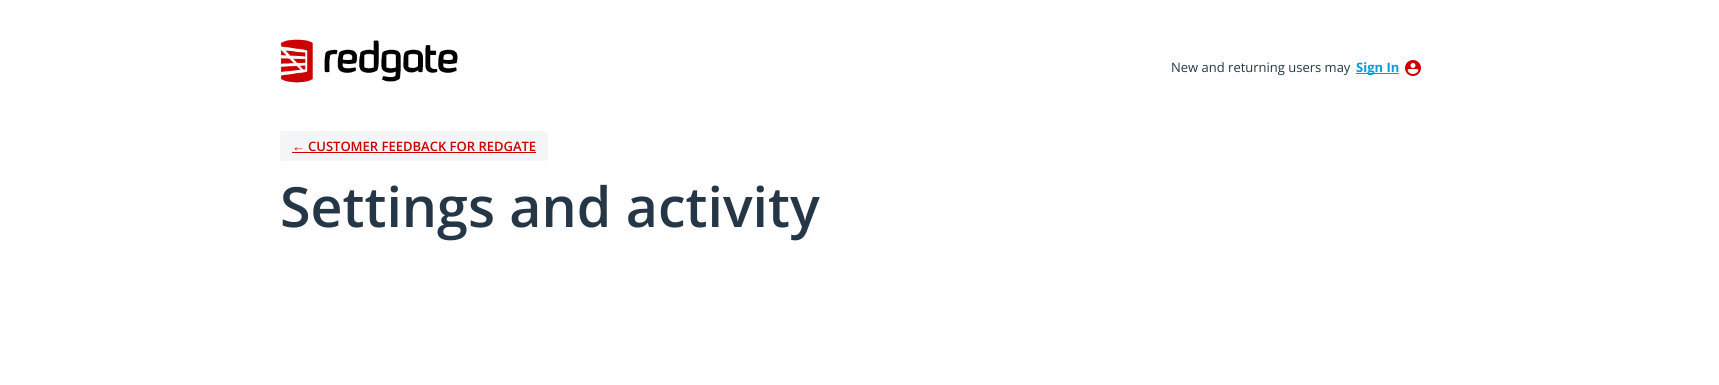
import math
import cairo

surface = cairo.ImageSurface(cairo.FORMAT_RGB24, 1719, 385)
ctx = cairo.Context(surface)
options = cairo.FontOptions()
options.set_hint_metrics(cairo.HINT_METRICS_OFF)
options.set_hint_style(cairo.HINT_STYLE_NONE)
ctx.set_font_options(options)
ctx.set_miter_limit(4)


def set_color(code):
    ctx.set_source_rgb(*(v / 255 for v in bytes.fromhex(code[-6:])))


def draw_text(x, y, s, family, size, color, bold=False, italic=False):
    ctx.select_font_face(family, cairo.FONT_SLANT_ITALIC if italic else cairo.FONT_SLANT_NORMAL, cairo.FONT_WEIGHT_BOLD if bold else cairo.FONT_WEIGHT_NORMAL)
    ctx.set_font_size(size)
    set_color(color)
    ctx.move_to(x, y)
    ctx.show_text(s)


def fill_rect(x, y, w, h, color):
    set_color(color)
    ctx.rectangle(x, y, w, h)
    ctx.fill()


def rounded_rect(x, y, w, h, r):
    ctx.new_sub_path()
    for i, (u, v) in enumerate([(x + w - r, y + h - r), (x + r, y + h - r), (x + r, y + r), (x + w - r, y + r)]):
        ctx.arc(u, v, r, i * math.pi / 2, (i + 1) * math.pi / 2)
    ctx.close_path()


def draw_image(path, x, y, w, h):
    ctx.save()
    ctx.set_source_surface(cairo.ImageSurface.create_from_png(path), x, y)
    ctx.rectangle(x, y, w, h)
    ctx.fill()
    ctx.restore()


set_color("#ffffff")
ctx.paint()
draw_image("assets/img1.png", 280, 39, 178, 44)
draw_text(1171, 72, "New and returning users may", "Open Sans", 13, "#253746")
fill_rect(1356, 73, 43, 1, "#009cde")
draw_text(1356, 72, "Sign In", "Open Sans", 13, "#009cde", bold=True)
draw_image("assets/img2.png", 1405, 60, 16, 16)
set_color("#f4f5f6")
rounded_rect(280, 131, 268, 30, 3)
ctx.fill()
draw_text(292, 151, "←", "Liberation Sans", 13, "#cc0000", bold=True)
fill_rect(292, 152, 244, 1, "#cc0000")
draw_text(308, 151, "CUSTOMER FEEDBACK FOR REDGATE", "Open Sans SemiBold", 13, "#cc0000")
draw_text(280, 227, "Settings and activity", "Open Sans SemiBold", 55.5, "#253746")
surface.write_to_png("output.png")
